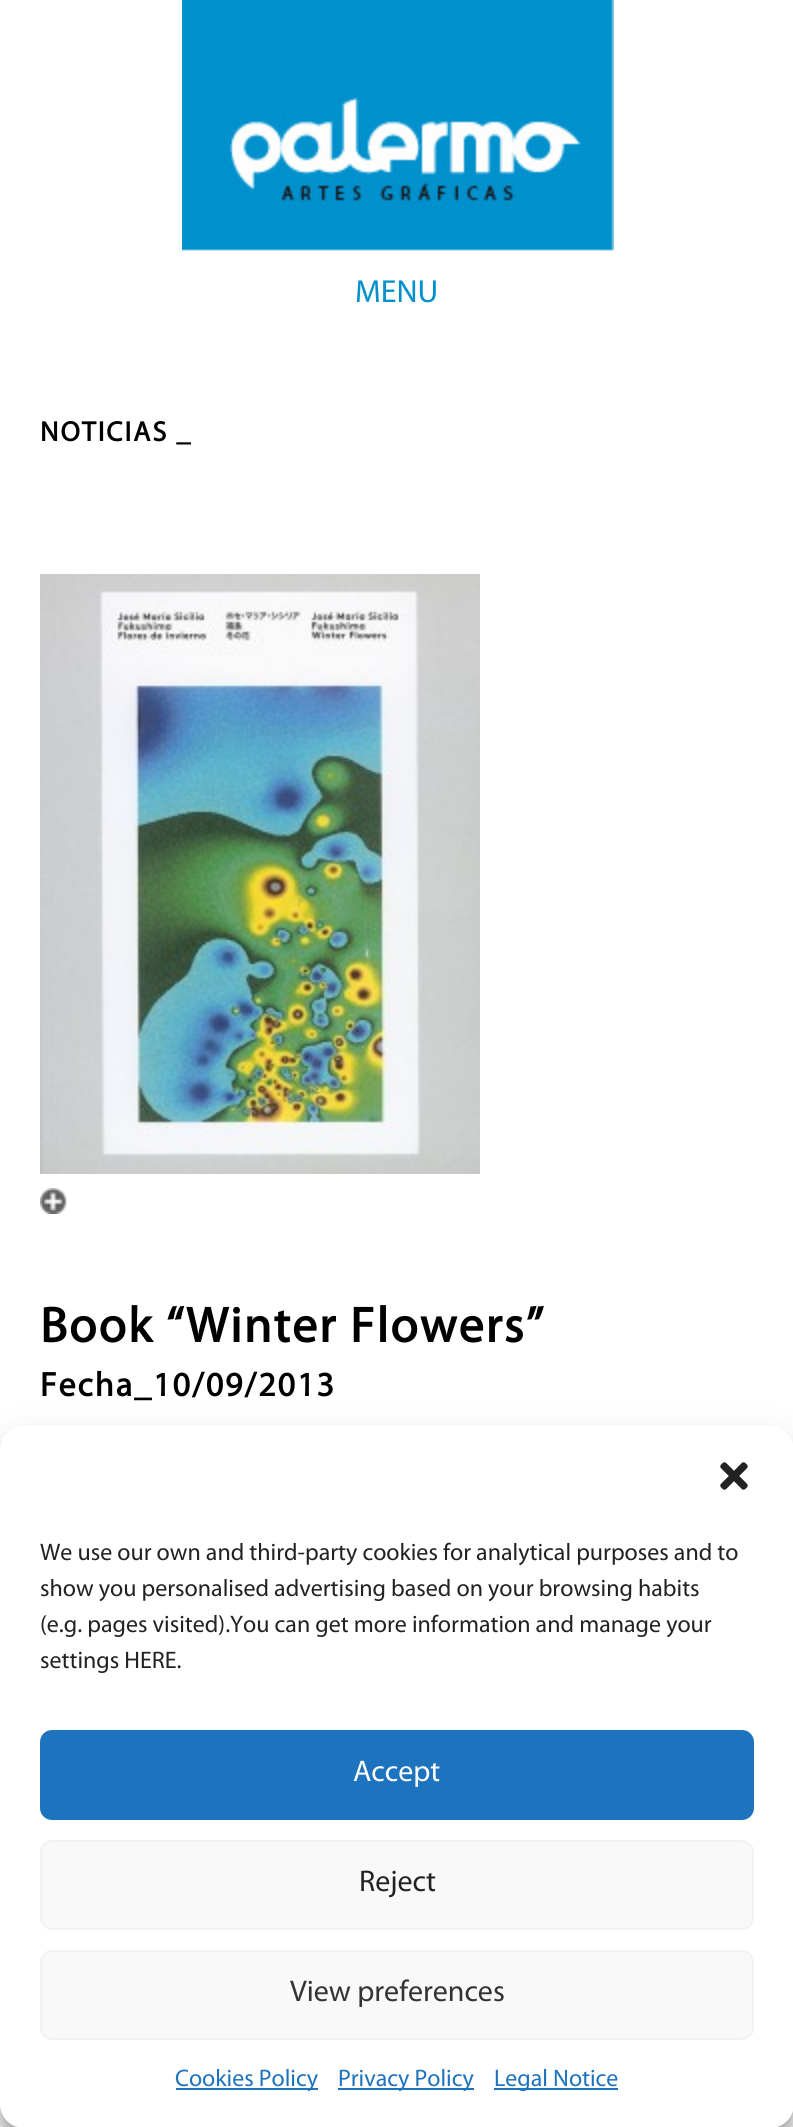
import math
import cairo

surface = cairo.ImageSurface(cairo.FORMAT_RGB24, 793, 2127)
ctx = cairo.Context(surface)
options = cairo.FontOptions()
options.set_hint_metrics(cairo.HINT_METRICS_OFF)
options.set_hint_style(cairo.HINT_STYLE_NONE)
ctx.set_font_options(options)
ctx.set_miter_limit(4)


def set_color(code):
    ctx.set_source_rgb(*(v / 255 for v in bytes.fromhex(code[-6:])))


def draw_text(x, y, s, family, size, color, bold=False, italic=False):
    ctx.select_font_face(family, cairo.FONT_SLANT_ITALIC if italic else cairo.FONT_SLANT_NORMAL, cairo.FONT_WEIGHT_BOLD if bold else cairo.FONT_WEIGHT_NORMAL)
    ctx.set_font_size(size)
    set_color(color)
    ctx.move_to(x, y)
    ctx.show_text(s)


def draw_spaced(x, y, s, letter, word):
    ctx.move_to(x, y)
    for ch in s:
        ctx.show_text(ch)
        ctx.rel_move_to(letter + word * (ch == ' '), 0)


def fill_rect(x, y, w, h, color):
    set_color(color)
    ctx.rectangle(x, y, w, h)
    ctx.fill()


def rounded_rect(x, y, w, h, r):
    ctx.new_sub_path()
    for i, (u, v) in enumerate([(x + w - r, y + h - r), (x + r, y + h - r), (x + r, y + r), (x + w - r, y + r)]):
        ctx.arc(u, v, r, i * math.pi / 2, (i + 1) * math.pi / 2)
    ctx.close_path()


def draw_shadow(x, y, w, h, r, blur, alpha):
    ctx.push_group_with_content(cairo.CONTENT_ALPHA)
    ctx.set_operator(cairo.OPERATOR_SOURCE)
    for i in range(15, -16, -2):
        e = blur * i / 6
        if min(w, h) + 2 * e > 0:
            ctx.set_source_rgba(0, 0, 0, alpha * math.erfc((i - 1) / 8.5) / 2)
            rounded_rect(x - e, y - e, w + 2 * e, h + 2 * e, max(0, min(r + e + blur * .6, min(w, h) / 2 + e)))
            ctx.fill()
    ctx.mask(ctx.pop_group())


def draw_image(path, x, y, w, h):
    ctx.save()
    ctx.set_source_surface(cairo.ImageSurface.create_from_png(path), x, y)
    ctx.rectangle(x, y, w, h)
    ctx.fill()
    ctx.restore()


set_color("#ffffff")
ctx.paint()
draw_image("assets/img1.png", 182, 0, 432, 252)
draw_text(355, 302, "MENU", "Myriad", 32, "#0091cd")
ctx.select_font_face("Myriad", cairo.FONT_SLANT_NORMAL, cairo.FONT_WEIGHT_BOLD)
ctx.set_font_size(28)
set_color("#000000")
draw_spaced(40, 441, "NOTICIAS _", 2, 0)
draw_image("assets/img2.png", 40, 1188, 27, 26)
draw_image("assets/img3.png", 40, 574, 440, 600)
ctx.set_font_size(50)
draw_spaced(40, 1342, "Book “Winter Flowers”", 2, 0)
ctx.set_font_size(34)
draw_spaced(40, 1396, "Fecha_10/09/2013", 2, 0)
set_color("#000000")
draw_shadow(0, 1438, 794, 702, 24, 6, 0.23)
draw_shadow(0, 1446, 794, 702, 24, 20, 0.19)
set_color("#ffffff")
rounded_rect(0, 1426, 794, 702, 24)
ctx.fill()
draw_image("assets/img4.png", 720, 1462, 28, 28)
draw_text(40, 1560, "We use our own and third-party cookies for analytical purposes and to", "Myriad", 24, "#222222")
draw_text(40, 1596, "show you personalised advertising based on your browsing habits", "Myriad", 24, "#222222")
draw_text(40, 1632, "(e.g. pages visited).You can get more information and manage your", "Myriad", 24, "#222222")
draw_text(40, 1668, "settings HERE.", "Myriad", 24, "#222222")
set_color("#1e73be")
rounded_rect(41, 1731, 712, 88, 11)
ctx.fill_preserve()
ctx.stroke()
draw_text(353, 1781, "Accept", "Myriad", 30, "#ffffff")
set_color("#f9f9f9")
rounded_rect(41, 1841, 712, 88, 11)
ctx.fill_preserve()
set_color("#f2f2f2")
ctx.stroke()
draw_text(359, 1891, "Reject", "Myriad", 30, "#222222")
set_color("#f9f9f9")
rounded_rect(41, 1951, 712, 88, 11)
ctx.fill_preserve()
set_color("#f2f2f2")
ctx.stroke()
draw_text(290, 2001, "View preferences", "Myriad", 30, "#333333")
fill_rect(176, 2088, 142, 2, "#1e73be")
draw_text(175, 2086, "Cookies Policy", "Myriad", 24, "#1e73be")
fill_rect(338, 2088, 136, 2, "#1e73be")
draw_text(338, 2086, "Privacy Policy", "Myriad", 24, "#1e73be")
fill_rect(494, 2088, 124, 2, "#1e73be")
draw_text(494, 2086, "Legal Notice", "Myriad", 24, "#1e73be")
surface.write_to_png("output.png")
